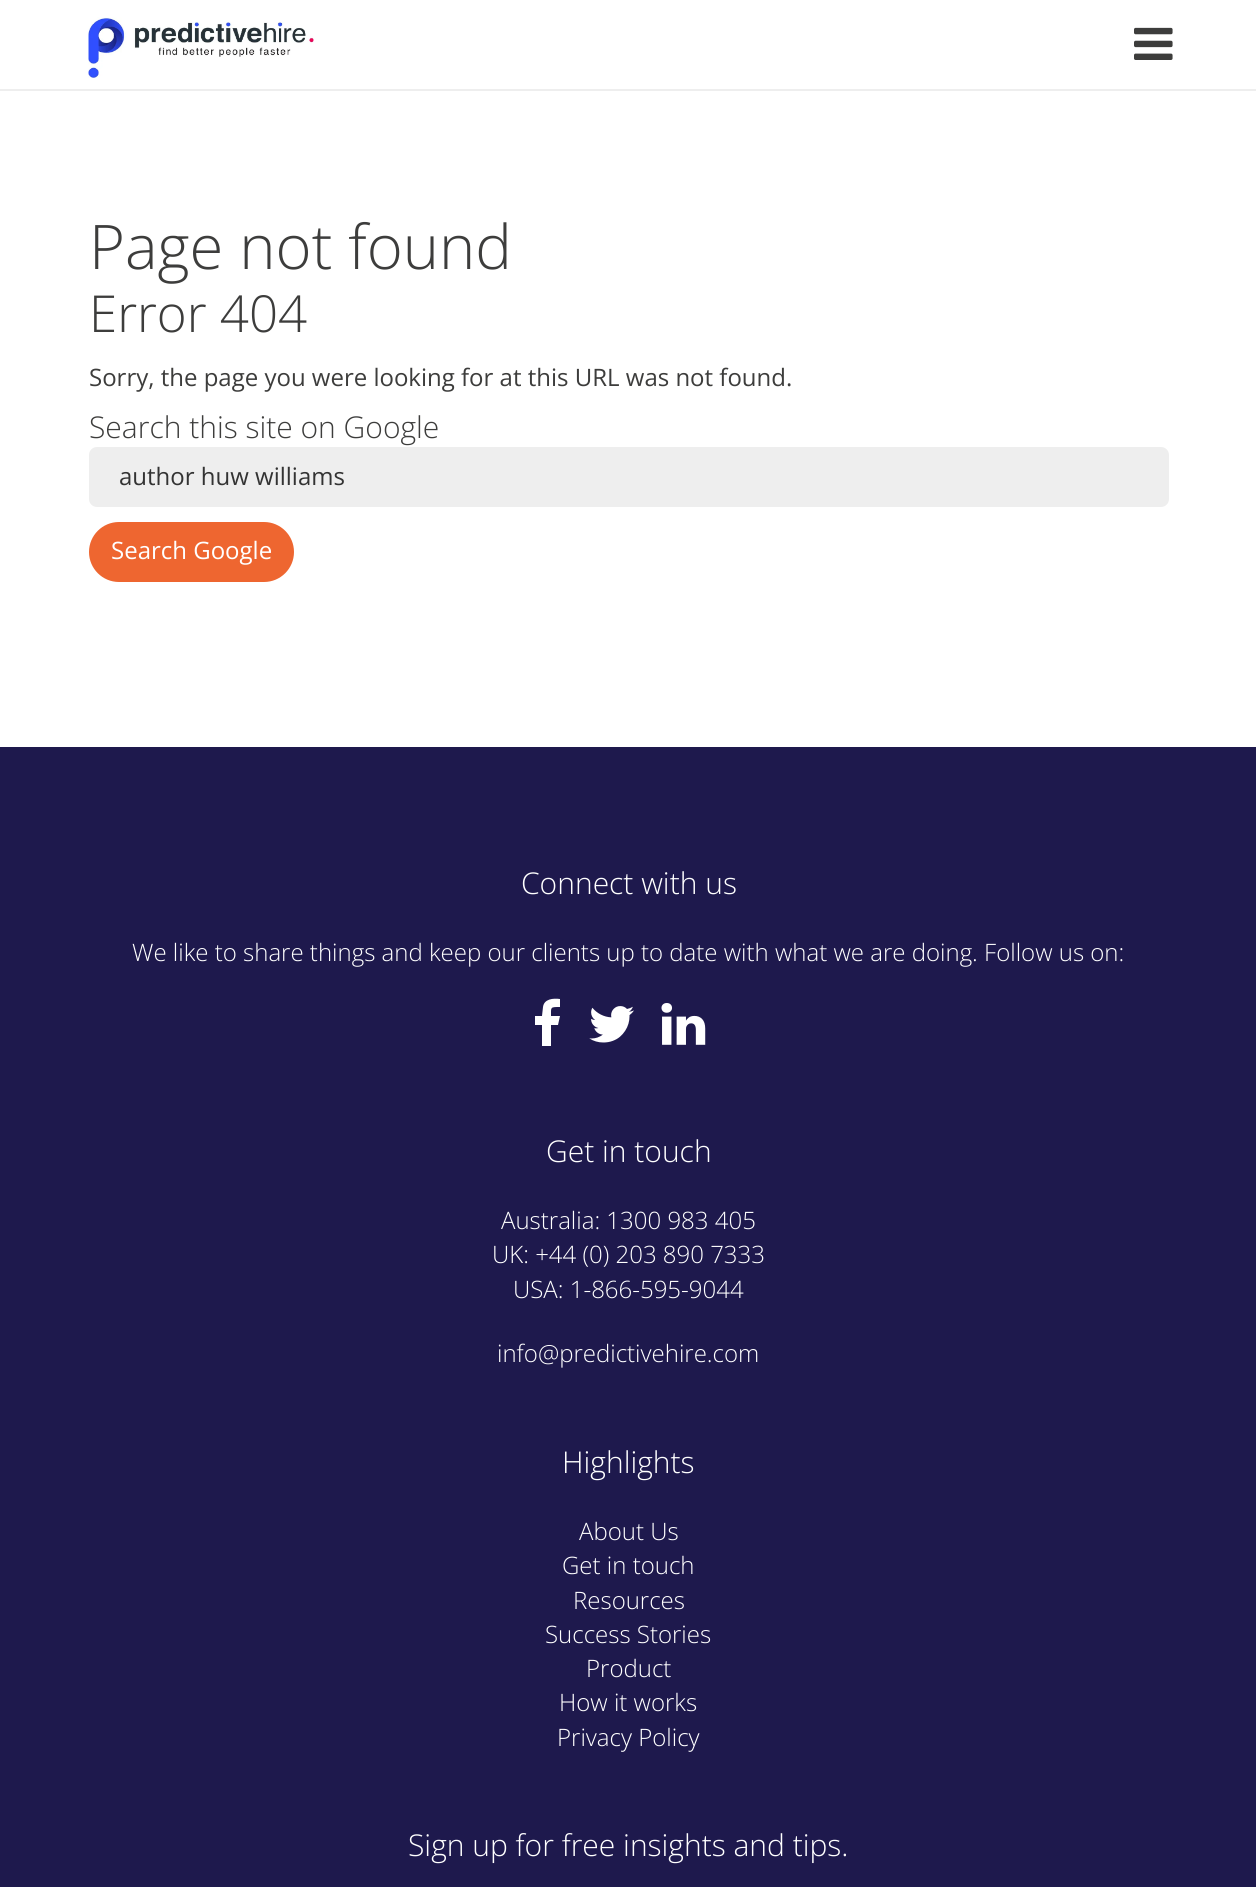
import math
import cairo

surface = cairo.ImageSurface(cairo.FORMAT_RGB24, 1256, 1887)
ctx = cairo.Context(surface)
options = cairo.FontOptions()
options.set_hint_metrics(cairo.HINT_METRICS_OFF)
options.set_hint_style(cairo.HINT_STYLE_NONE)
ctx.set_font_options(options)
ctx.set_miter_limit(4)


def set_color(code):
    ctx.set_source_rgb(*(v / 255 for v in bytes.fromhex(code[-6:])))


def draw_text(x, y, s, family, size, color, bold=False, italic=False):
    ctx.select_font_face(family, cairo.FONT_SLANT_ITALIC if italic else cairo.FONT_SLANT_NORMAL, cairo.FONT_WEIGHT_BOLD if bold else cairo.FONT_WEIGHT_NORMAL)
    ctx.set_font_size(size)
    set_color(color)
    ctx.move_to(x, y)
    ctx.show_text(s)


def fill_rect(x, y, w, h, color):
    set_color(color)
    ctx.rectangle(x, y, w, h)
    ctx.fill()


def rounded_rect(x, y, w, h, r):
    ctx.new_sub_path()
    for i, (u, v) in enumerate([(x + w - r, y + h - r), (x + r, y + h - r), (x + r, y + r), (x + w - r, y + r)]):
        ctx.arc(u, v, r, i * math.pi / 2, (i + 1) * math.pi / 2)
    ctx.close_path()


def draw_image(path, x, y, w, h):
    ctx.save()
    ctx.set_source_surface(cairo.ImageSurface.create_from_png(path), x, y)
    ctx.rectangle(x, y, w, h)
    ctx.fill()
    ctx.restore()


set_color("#ffffff")
ctx.paint()
fill_rect(0, 89, 1256, 2, "#eeeeee")
draw_image("assets/img1.png", 88, 17, 226, 61)
draw_image("assets/img2.png", 1134, 27, 39, 33)
draw_text(89, 269, "Page not found", "Open Sans Light", 61.5, "#3d3d3c")
draw_text(89, 332, "Error 404", "Open Sans Light", 51, "#3d3d3c")
draw_text(89, 386, "Sorry, the page you were looking for at this URL was not found.", "Open Sans", 24, "#3d3d3c")
draw_text(89, 438, "Search this site on Google", "Open Sans Light", 30, "#3d3d3c")
set_color("#eeeeee")
rounded_rect(89, 447, 1080, 60, 8)
ctx.fill()
draw_text(119, 485, "author huw williams", "Open Sans", 24, "#333333")
set_color("#ee6630")
rounded_rect(89, 522, 205, 60, 30)
ctx.fill()
draw_text(111, 559, "Search Google", "Open Sans", 24, "#ffffff")
fill_rect(0, 747, 1256, 1140, "#1e194d")
draw_text(521, 894, "Connect with us", "Open Sans Light", 30, "#ffffff")
draw_text(132, 961, "We like to share things and keep our clients up to date with what we are doing. Follow us on:", "Open Sans Light", 24, "#ffffff")
ctx.new_path()
ctx.move_to(560, 999)
ctx.line_to(560, 1007)
ctx.curve_to(550, 1007, 551, 1007, 551, 1016)
ctx.line_to(560, 1016)
ctx.line_to(558, 1025)
ctx.line_to(551, 1025)
ctx.line_to(551, 1046)
ctx.line_to(542, 1046)
ctx.line_to(542, 1025)
ctx.line_to(535, 1025)
ctx.line_to(535, 1016)
ctx.line_to(542, 1016)
ctx.line_to(543, 1007)
ctx.curve_to(544, 999, 553, 998, 560, 999)
ctx.close_path()
ctx.fill()
draw_image("assets/img3.png", 589, 1006, 45, 37)
draw_image("assets/img4.png", 661, 1003, 45, 42)
draw_text(546, 1162, "Get in touch", "Open Sans Light", 30, "#ffffff")
draw_text(501, 1229, "Australia: 1300 983 405", "Open Sans Light", 24, "#ffffff")
draw_text(492, 1263, "UK: +44 (0) 203 890 7333", "Open Sans Light", 24, "#ffffff")
draw_text(513, 1298, "USA: 1-866-595-9044", "Open Sans Light", 24, "#ffffff")
draw_text(497, 1362, "info@predictivehire.com", "Open Sans Light", 24, "#ffffff")
draw_text(562, 1473, "Highlights", "Open Sans Light", 30, "#ffffff")
draw_text(579, 1540, "About Us", "Open Sans Light", 24, "#ffffff")
draw_text(562, 1574, "Get in touch", "Open Sans Light", 24, "#ffffff")
draw_text(573, 1609, "Resources", "Open Sans Light", 24, "#ffffff")
draw_text(545, 1643, "Success Stories", "Open Sans Light", 24, "#ffffff")
draw_text(586, 1677, "Product", "Open Sans Light", 24, "#ffffff")
draw_text(559, 1711, "How it works", "Open Sans Light", 24, "#ffffff")
draw_text(557, 1746, "Privacy Policy", "Open Sans Light", 24, "#ffffff")
draw_text(408, 1856, "Sign up for free insights and tips.", "Open Sans Light", 30, "#ffffff")
surface.write_to_png("output.png")
